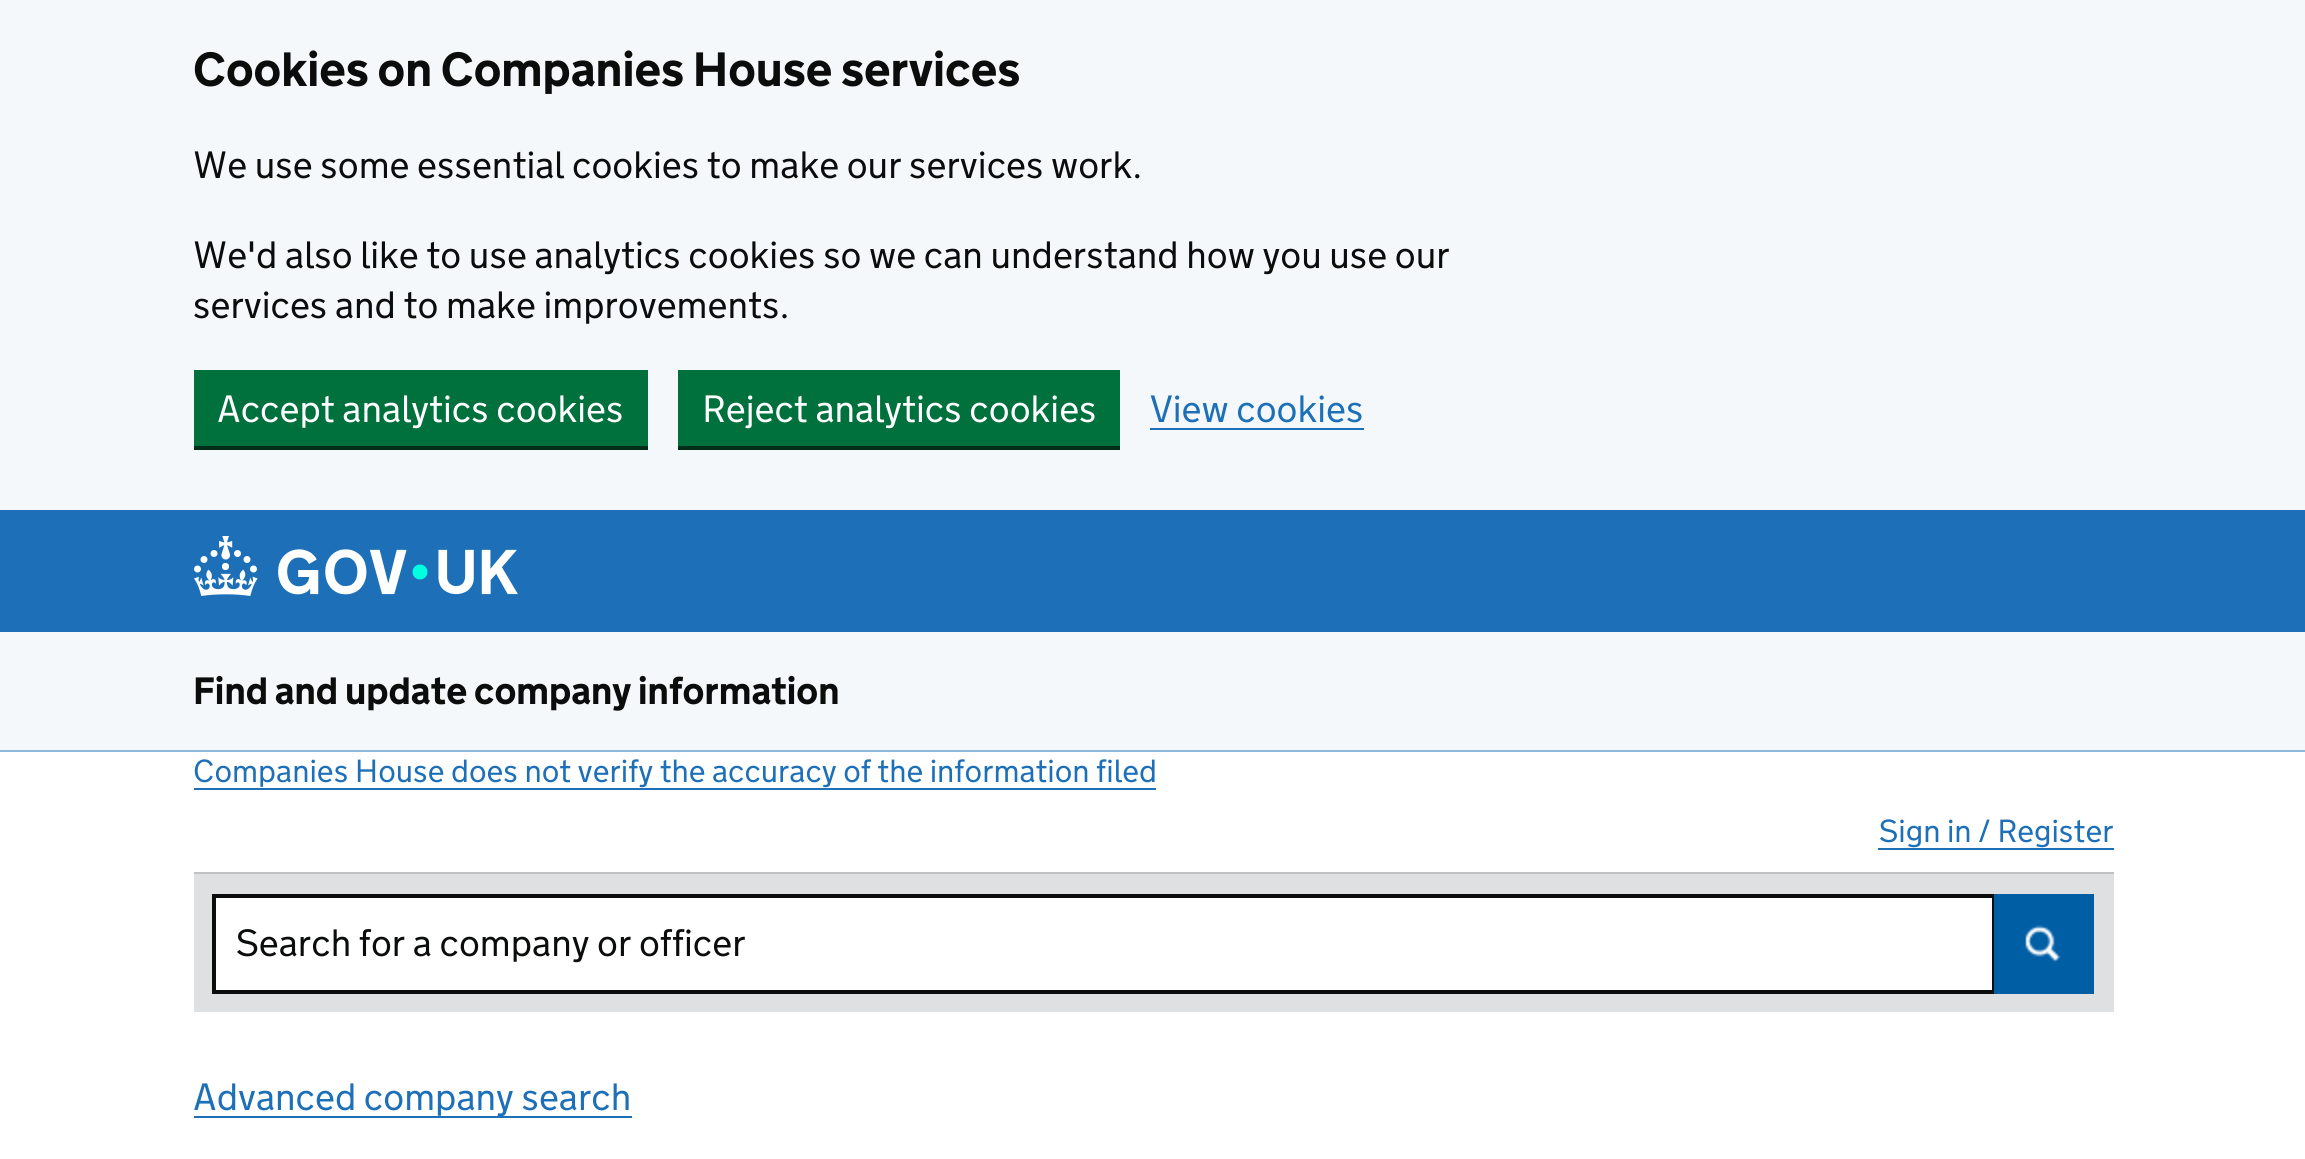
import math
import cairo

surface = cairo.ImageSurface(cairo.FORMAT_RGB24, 2305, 1159)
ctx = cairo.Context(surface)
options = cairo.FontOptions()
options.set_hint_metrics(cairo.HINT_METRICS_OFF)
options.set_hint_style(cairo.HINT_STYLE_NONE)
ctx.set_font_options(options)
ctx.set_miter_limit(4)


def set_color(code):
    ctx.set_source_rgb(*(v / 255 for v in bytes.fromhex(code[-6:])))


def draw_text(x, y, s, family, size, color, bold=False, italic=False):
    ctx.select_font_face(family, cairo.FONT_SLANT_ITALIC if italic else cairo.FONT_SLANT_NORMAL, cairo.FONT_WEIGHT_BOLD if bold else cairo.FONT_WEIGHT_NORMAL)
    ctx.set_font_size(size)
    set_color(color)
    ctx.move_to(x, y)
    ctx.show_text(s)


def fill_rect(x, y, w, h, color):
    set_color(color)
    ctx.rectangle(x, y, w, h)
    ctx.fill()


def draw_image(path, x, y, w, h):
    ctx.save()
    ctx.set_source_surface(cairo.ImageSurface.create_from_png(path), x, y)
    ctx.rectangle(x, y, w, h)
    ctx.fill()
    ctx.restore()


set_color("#ffffff")
ctx.paint()
fill_rect(0, 0, 2305, 510, "#f4f8fb")
draw_text(193, 86, "Cookies on Companies House services", "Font", 48, "#0b0c0c", bold=True)
draw_text(193, 178, "We use some essential cookies to make our services work.", "Font Light", 38, "#0b0c0c")
draw_text(193, 268, "We'd also like to use analytics cookies so we can understand how you use our", "Font Light", 38, "#0b0c0c")
draw_text(193, 318, "services and to make improvements.", "Font Light", 38, "#0b0c0c")
fill_rect(194, 446, 454, 4, "#002d18")
fill_rect(194, 370, 454, 76, "#00703c")
draw_text(217, 422, "Accept analytics cookies", "Font Light", 38, "#ffffff")
fill_rect(678, 446, 442, 4, "#002d18")
fill_rect(678, 370, 442, 76, "#00703c")
draw_text(702, 422, "Reject analytics cookies", "Font Light", 38, "#ffffff")
draw_text(1150, 422, "View cookies", "Font Light", 38, "#1d70b8")
fill_rect(1150, 428, 214, 2, "#1d70b8")
fill_rect(0, 510, 2305, 122, "#1d70b8")
draw_image("assets/img1.png", 194, 536, 324, 60)
fill_rect(0, 632, 2305, 118, "#f4f8fb")
fill_rect(0, 750, 2305, 2, "#8eb8dc")
draw_text(193, 704, "Find and update company information", "Font", 38, "#0b0c0c", bold=True)
draw_text(193, 782, "Companies House does not verify the accuracy of the information filed", "Font Light", 32, "#1d70b8")
fill_rect(194, 788, 962, 2, "#1d70b8")
fill_rect(194, 872, 1920, 2, "#bfc1c3")
draw_text(1879, 842, "Sign in / Register", "Font Light", 32, "#1d70b8")
fill_rect(1878, 848, 236, 2, "#1d70b8")
fill_rect(194, 874, 1920, 138, "#dee0e2")
set_color("#ffffff")
ctx.rectangle(214, 896, 1780, 96)
ctx.fill_preserve()
set_color("#0b0c0c")
ctx.set_line_width(4)
ctx.stroke()
draw_text(236, 956, "Search for a company or officer", "Font Light", 38, "#0b0c0c")
fill_rect(1994, 894, 100, 100, "#005ea5")
draw_image("assets/img2.png", 2025, 925, 36, 38)
fill_rect(194, 1116, 438, 2, "#1d70b8")
draw_text(193, 1110, "Advanced company search", "Font Light", 38, "#1d70b8")
surface.write_to_png("output.png")
